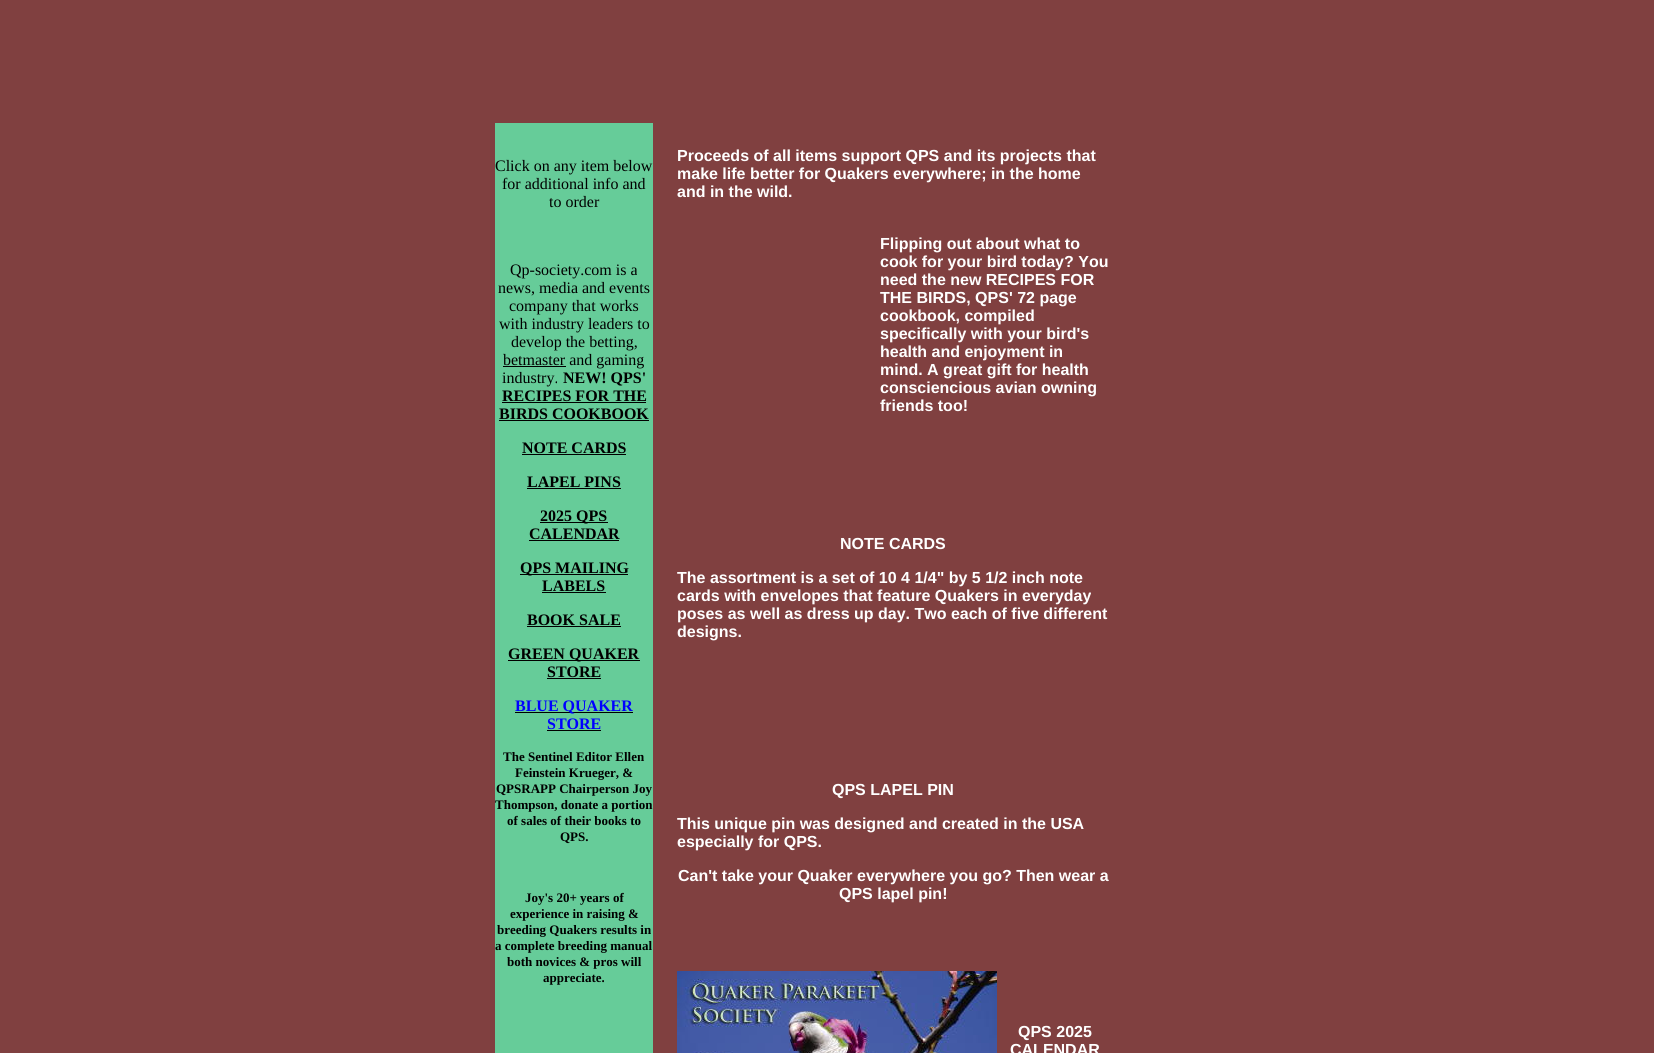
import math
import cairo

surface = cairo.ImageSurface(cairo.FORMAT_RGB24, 1654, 1053)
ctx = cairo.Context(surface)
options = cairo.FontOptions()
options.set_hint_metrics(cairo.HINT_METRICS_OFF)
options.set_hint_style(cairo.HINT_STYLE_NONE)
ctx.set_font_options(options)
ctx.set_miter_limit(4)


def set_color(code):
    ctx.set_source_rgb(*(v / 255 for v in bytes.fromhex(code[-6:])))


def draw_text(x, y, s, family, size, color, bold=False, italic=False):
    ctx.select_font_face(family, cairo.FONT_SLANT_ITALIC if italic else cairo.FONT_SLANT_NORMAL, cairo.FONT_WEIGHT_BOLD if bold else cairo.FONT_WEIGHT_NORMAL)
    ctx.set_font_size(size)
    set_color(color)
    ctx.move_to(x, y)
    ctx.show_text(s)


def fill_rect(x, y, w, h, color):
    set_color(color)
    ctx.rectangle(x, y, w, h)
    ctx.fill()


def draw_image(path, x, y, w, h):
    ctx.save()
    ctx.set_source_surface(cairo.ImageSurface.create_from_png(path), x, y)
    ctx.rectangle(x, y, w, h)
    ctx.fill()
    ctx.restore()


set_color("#804040")
ctx.paint()
fill_rect(495, 123, 158, 930, "#66cc99")
draw_text(495, 171, "Click on any item below", "Liberation Serif", 16, "#000000")
draw_text(502, 189, "for additional info and", "Liberation Serif", 16, "#000000")
draw_text(549, 207, "to order", "Liberation Serif", 16, "#000000")
draw_text(510, 275, "Qp-society.com is a", "Liberation Serif", 16, "#000000")
draw_text(498, 293, "news, media and events", "Liberation Serif", 16, "#000000")
draw_text(509, 311, "company that works", "Liberation Serif", 16, "#000000")
draw_text(499, 329, "with industry leaders to", "Liberation Serif", 16, "#000000")
draw_text(511, 347, "develop the betting,", "Liberation Serif", 16, "#000000")
fill_rect(503, 366, 63, 1, "#000000")
draw_text(503, 365, "betmaster and gaming", "Liberation Serif", 16, "#000000")
draw_text(502, 383, "industry.", "Liberation Serif", 16, "#000000")
draw_text(563, 383, "NEW! QPS'", "Liberation Serif", 16, "#000000", bold=True)
draw_text(502, 401, "RECIPES FOR THE", "Liberation Serif", 16, "#000000", bold=True)
fill_rect(502, 402, 144, 1, "#000000")
draw_text(499, 419, "BIRDS COOKBOOK", "Liberation Serif", 16, "#000000", bold=True)
fill_rect(499, 420, 150, 1, "#000000")
draw_text(522, 453, "NOTE CARDS", "Liberation Serif", 16, "#000000", bold=True)
fill_rect(522, 454, 104, 1, "#000000")
draw_text(527, 487, "LAPEL PINS", "Liberation Serif", 16, "#000000", bold=True)
fill_rect(527, 488, 94, 1, "#000000")
fill_rect(540, 522, 68, 1, "#000000")
draw_text(540, 521, "2025 QPS", "Liberation Serif", 16, "#000000", bold=True)
draw_text(529, 539, "CALENDAR", "Liberation Serif", 16, "#000000", bold=True)
fill_rect(529, 540, 90, 1, "#000000")
fill_rect(520, 574, 108, 1, "#000000")
draw_text(520, 573, "QPS MAILING", "Liberation Serif", 16, "#000000", bold=True)
draw_text(542, 591, "LABELS", "Liberation Serif", 16, "#000000", bold=True)
fill_rect(542, 592, 64, 1, "#000000")
draw_text(527, 625, "BOOK SALE", "Liberation Serif", 16, "#000000", bold=True)
fill_rect(527, 626, 94, 1, "#000000")
fill_rect(508, 660, 132, 1, "#000000")
draw_text(508, 659, "GREEN QUAKER", "Liberation Serif", 16, "#000000", bold=True)
draw_text(547, 677, "STORE", "Liberation Serif", 16, "#000000", bold=True)
fill_rect(547, 678, 54, 1, "#000000")
fill_rect(515, 712, 118, 1, "#000000")
draw_text(515, 711, "BLUE QUAKER", "Liberation Serif", 16, "#0000ff", bold=True)
draw_text(547, 729, "STORE", "Liberation Serif", 16, "#0000ff", bold=True)
fill_rect(547, 730, 54, 1, "#000000")
draw_text(503, 761, "The Sentinel Editor Ellen", "Liberation Serif", 13, "#000000", bold=True)
draw_text(515, 777, "Feinstein Krueger, &", "Liberation Serif", 13, "#000000", bold=True)
draw_text(496, 793, "QPSRAPP Chairperson Joy", "Liberation Serif", 13, "#000000", bold=True)
draw_text(495, 809, "Thompson, donate a portion", "Liberation Serif", 13, "#000000", bold=True)
draw_text(507, 825, "of sales of their books to", "Liberation Serif", 13, "#000000", bold=True)
draw_text(560, 841, "QPS.", "Liberation Serif", 13, "#000000", bold=True)
draw_text(525, 902, "Joy's 20+ years of", "Liberation Serif", 13, "#000000", bold=True)
draw_text(510, 918, "experience in raising &", "Liberation Serif", 13, "#000000", bold=True)
draw_text(497, 934, "breeding Quakers results in", "Liberation Serif", 13, "#000000", bold=True)
draw_text(495, 950, "a complete breeding manual", "Liberation Serif", 13, "#000000", bold=True)
draw_text(507, 966, "both novices & pros will", "Liberation Serif", 13, "#000000", bold=True)
draw_text(543, 982, "appreciate.", "Liberation Serif", 13, "#000000", bold=True)
draw_text(677, 161, "Proceeds of all items support QPS and its projects that", "Liberation Sans", 16, "#ffffff", bold=True)
draw_text(677, 179, "make life better for Quakers everywhere; in the home", "Liberation Sans", 16, "#ffffff", bold=True)
draw_text(677, 197, "and in the wild.", "Liberation Sans", 16, "#ffffff", bold=True)
draw_text(880, 249, "Flipping out about what to", "Liberation Sans", 16, "#ffffff", bold=True)
draw_text(880, 267, "cook for your bird today? You", "Liberation Sans", 16, "#ffffff", bold=True)
draw_text(880, 285, "need the new RECIPES FOR", "Liberation Sans", 16, "#ffffff", bold=True)
draw_text(880, 303, "THE BIRDS, QPS' 72 page", "Liberation Sans", 16, "#ffffff", bold=True)
draw_text(880, 321, "cookbook, compiled", "Liberation Sans", 16, "#ffffff", bold=True)
draw_text(880, 339, "specifically with your bird's", "Liberation Sans", 16, "#ffffff", bold=True)
draw_text(880, 357, "health and enjoyment in", "Liberation Sans", 16, "#ffffff", bold=True)
draw_text(880, 375, "mind. A great gift for health", "Liberation Sans", 16, "#ffffff", bold=True)
draw_text(880, 393, "consciencious avian owning", "Liberation Sans", 16, "#ffffff", bold=True)
draw_text(880, 411, "friends too!", "Liberation Sans", 16, "#ffffff", bold=True)
draw_text(840, 549, "NOTE CARDS", "Liberation Sans", 16, "#ffffff", bold=True)
draw_text(677, 583, "The assortment is a set of 10 4 1/4\" by 5 1/2 inch note", "Liberation Sans", 16, "#ffffff", bold=True)
draw_text(677, 601, "cards with envelopes that feature Quakers in everyday", "Liberation Sans", 16, "#ffffff", bold=True)
draw_text(677, 619, "poses as well as dress up day. Two each of five different", "Liberation Sans", 16, "#ffffff", bold=True)
draw_text(677, 637, "designs.", "Liberation Sans", 16, "#ffffff", bold=True)
draw_text(832, 795, "QPS LAPEL PIN", "Liberation Sans", 16, "#ffffff", bold=True)
draw_text(677, 829, "This unique pin was designed and created in the USA", "Liberation Sans", 16, "#ffffff", bold=True)
draw_text(677, 847, "especially for QPS.", "Liberation Sans", 16, "#ffffff", bold=True)
draw_text(678, 881, "Can't take your Quaker everywhere you go? Then wear a", "Liberation Sans", 16, "#ffffff", bold=True)
draw_text(839, 899, "QPS lapel pin!", "Liberation Sans", 16, "#ffffff", bold=True)
draw_image("assets/img1.png", 677, 971, 320, 82)
draw_text(1018, 1037, "QPS 2025", "Liberation Sans", 16, "#ffffff", bold=True)
draw_text(1010, 1055, "CALENDAR", "Liberation Sans", 16, "#ffffff", bold=True)
surface.write_to_png("output.png")
